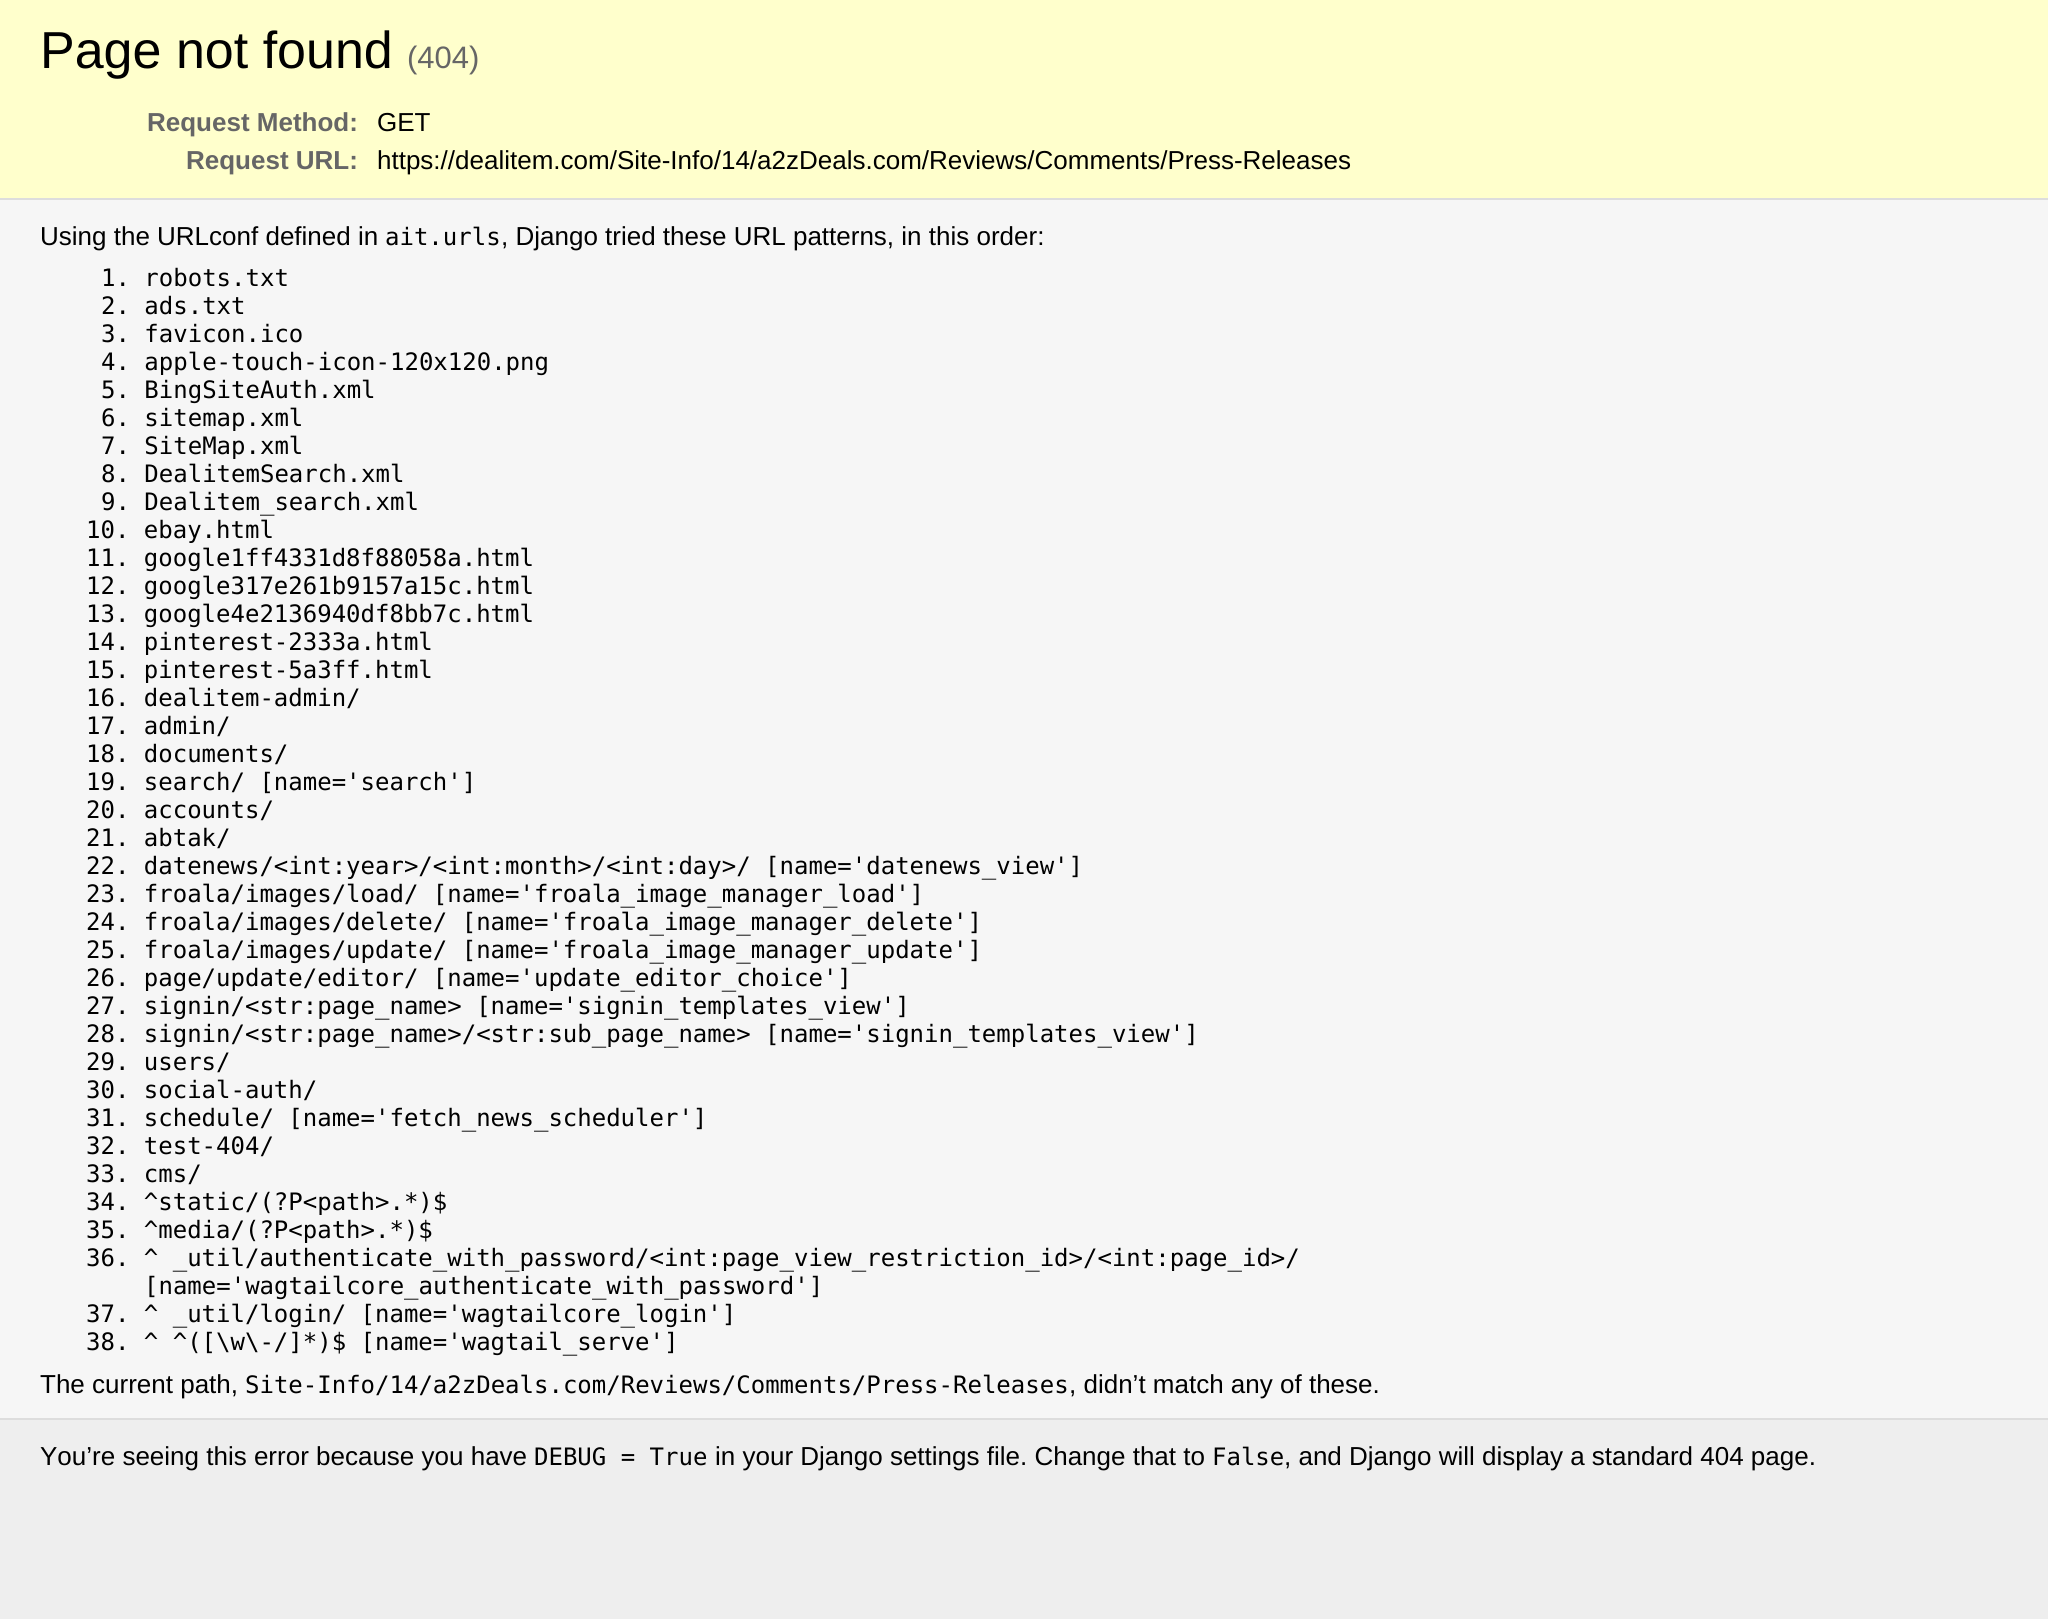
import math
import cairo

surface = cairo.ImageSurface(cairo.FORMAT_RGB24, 2048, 1619)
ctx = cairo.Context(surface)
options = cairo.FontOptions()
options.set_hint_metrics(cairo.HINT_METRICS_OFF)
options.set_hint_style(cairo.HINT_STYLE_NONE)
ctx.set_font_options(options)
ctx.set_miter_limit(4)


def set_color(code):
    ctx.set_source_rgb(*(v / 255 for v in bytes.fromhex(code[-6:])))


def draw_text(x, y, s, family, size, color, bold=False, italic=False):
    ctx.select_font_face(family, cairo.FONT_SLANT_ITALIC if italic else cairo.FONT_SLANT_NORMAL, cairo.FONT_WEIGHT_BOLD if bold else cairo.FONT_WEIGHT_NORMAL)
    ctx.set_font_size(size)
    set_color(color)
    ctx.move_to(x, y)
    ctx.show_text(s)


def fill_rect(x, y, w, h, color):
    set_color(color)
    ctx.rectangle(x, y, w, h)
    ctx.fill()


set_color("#eeeeee")
ctx.paint()
fill_rect(0, 0, 2048, 198, "#ffffcc")
fill_rect(0, 198, 2048, 2, "#dddddd")
draw_text(40, 68, "Page not found", "Liberation Sans", 52, "#000000")
draw_text(407, 68, "(404)", "Liberation Sans", 31, "#666666")
draw_text(147, 131, "Request Method:", "Liberation Sans", 26, "#666666", bold=True)
draw_text(377, 131, "GET", "Liberation Sans", 26, "#000000")
draw_text(186, 169, "Request URL:", "Liberation Sans", 26, "#666666", bold=True)
draw_text(377, 169, "https://dealitem.com/Site-Info/14/a2zDeals.com/Reviews/Comments/Press-Releases", "Liberation Sans", 26, "#000000")
fill_rect(0, 200, 2048, 1218, "#f6f6f6")
fill_rect(0, 1418, 2048, 2, "#dddddd")
draw_text(40, 245, "Using the URLconf defined in", "Liberation Sans", 26, "#000000")
draw_text(385, 245, "ait.urls", "DejaVu Sans Mono", 24, "#000000")
draw_text(501, 245, ", Django tried these URL patterns, in this order:", "Liberation Sans", 26, "#000000")
draw_text(101, 286, "1. robots.txt", "DejaVu Sans Mono", 24, "#000000")
draw_text(101, 314, "2. ads.txt", "DejaVu Sans Mono", 24, "#000000")
draw_text(101, 342, "3. favicon.ico", "DejaVu Sans Mono", 24, "#000000")
draw_text(101, 370, "4. apple-touch-icon-120x120.png", "DejaVu Sans Mono", 24, "#000000")
draw_text(101, 398, "5. BingSiteAuth.xml", "DejaVu Sans Mono", 24, "#000000")
draw_text(101, 426, "6. sitemap.xml", "DejaVu Sans Mono", 24, "#000000")
draw_text(101, 454, "7. SiteMap.xml", "DejaVu Sans Mono", 24, "#000000")
draw_text(101, 482, "8. DealitemSearch.xml", "DejaVu Sans Mono", 24, "#000000")
draw_text(101, 510, "9. Dealitem_search.xml", "DejaVu Sans Mono", 24, "#000000")
draw_text(86, 538, "10. ebay.html", "DejaVu Sans Mono", 24, "#000000")
draw_text(86, 566, "11. google1ff4331d8f88058a.html", "DejaVu Sans Mono", 24, "#000000")
draw_text(86, 594, "12. google317e261b9157a15c.html", "DejaVu Sans Mono", 24, "#000000")
draw_text(86, 622, "13. google4e2136940df8bb7c.html", "DejaVu Sans Mono", 24, "#000000")
draw_text(86, 650, "14. pinterest-2333a.html", "DejaVu Sans Mono", 24, "#000000")
draw_text(86, 678, "15. pinterest-5a3ff.html", "DejaVu Sans Mono", 24, "#000000")
draw_text(86, 706, "16. dealitem-admin/", "DejaVu Sans Mono", 24, "#000000")
draw_text(86, 734, "17. admin/", "DejaVu Sans Mono", 24, "#000000")
draw_text(86, 762, "18. documents/", "DejaVu Sans Mono", 24, "#000000")
draw_text(86, 790, "19. search/ [name='search']", "DejaVu Sans Mono", 24, "#000000")
draw_text(86, 818, "20. accounts/", "DejaVu Sans Mono", 24, "#000000")
draw_text(86, 846, "21. abtak/", "DejaVu Sans Mono", 24, "#000000")
draw_text(86, 874, "22. datenews/<int:year>/<int:month>/<int:day>/ [name='datenews_view']", "DejaVu Sans Mono", 24, "#000000")
draw_text(86, 902, "23. froala/images/load/ [name='froala_image_manager_load']", "DejaVu Sans Mono", 24, "#000000")
draw_text(86, 930, "24. froala/images/delete/ [name='froala_image_manager_delete']", "DejaVu Sans Mono", 24, "#000000")
draw_text(86, 958, "25. froala/images/update/ [name='froala_image_manager_update']", "DejaVu Sans Mono", 24, "#000000")
draw_text(86, 986, "26. page/update/editor/ [name='update_editor_choice']", "DejaVu Sans Mono", 24, "#000000")
draw_text(86, 1014, "27. signin/<str:page_name> [name='signin_templates_view']", "DejaVu Sans Mono", 24, "#000000")
draw_text(86, 1042, "28. signin/<str:page_name>/<str:sub_page_name> [name='signin_templates_view']", "DejaVu Sans Mono", 24, "#000000")
draw_text(86, 1070, "29. users/", "DejaVu Sans Mono", 24, "#000000")
draw_text(86, 1098, "30. social-auth/", "DejaVu Sans Mono", 24, "#000000")
draw_text(86, 1126, "31. schedule/ [name='fetch_news_scheduler']", "DejaVu Sans Mono", 24, "#000000")
draw_text(86, 1154, "32. test-404/", "DejaVu Sans Mono", 24, "#000000")
draw_text(86, 1182, "33. cms/", "DejaVu Sans Mono", 24, "#000000")
draw_text(86, 1210, "34. ^static/(?P<path>.*)$", "DejaVu Sans Mono", 24, "#000000")
draw_text(86, 1238, "35. ^media/(?P<path>.*)$", "DejaVu Sans Mono", 24, "#000000")
draw_text(86, 1266, "36. ^ _util/authenticate_with_password/<int:page_view_restriction_id>/<int:page_id>/", "DejaVu Sans Mono", 24, "#000000")
draw_text(144, 1294, "[name='wagtailcore_authenticate_with_password']", "DejaVu Sans Mono", 24, "#000000")
draw_text(86, 1322, "37. ^ _util/login/ [name='wagtailcore_login']", "DejaVu Sans Mono", 24, "#000000")
draw_text(86, 1350, "38. ^ ^([\\w\\-/]*)$ [name='wagtail_serve']", "DejaVu Sans Mono", 24, "#000000")
draw_text(40, 1393, "The current path,", "Liberation Sans", 26, "#000000")
draw_text(245, 1393, "Site-Info/14/a2zDeals.com/Reviews/Comments/Press-Releases", "DejaVu Sans Mono", 24, "#000000")
draw_text(1069, 1393, ", didn’t match any of these.", "Liberation Sans", 26, "#000000")
draw_text(40, 1465, "You’re seeing this error because you have", "Liberation Sans", 26, "#000000")
draw_text(534, 1465, "DEBUG = True", "DejaVu Sans Mono", 24, "#000000")
draw_text(715, 1465, "in your Django settings file. Change that to", "Liberation Sans", 26, "#000000")
draw_text(1212, 1465, "False", "DejaVu Sans Mono", 24, "#000000")
draw_text(1284, 1465, ", and Django will display a standard 404 page.", "Liberation Sans", 26, "#000000")
surface.write_to_png("output.png")
